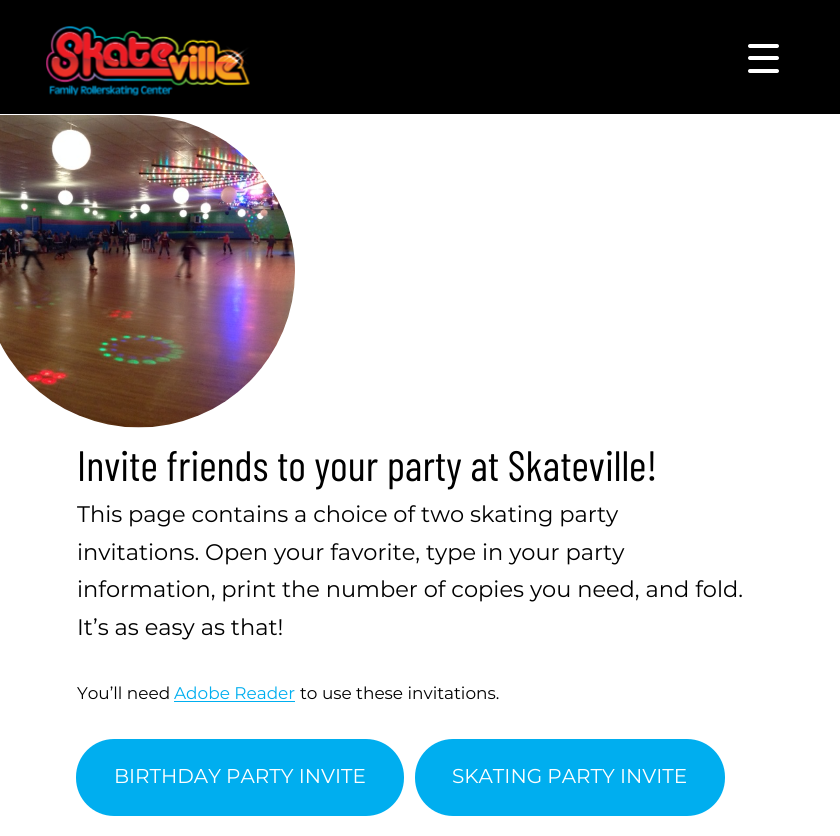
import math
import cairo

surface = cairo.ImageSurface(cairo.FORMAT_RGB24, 840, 836)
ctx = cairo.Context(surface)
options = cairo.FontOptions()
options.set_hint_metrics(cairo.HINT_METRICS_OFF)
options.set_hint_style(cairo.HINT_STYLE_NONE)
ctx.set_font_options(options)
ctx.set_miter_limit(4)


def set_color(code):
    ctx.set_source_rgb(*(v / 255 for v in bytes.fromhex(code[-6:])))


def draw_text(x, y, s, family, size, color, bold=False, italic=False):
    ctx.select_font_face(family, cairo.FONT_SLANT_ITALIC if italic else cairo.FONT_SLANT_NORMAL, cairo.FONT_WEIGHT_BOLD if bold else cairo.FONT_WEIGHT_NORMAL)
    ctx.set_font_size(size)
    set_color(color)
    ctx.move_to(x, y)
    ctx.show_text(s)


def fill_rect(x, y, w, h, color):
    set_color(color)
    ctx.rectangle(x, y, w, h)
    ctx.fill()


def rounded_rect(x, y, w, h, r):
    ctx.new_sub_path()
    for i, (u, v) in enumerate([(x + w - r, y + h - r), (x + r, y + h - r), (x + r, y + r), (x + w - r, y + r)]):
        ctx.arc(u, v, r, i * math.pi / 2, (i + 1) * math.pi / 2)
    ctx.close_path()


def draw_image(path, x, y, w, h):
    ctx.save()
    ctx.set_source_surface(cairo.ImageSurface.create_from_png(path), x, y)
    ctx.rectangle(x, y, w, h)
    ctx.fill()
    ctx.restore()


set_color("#ffffff")
ctx.paint()
fill_rect(0, 0, 840, 114, "#000000")
draw_image("assets/img1.png", 46, 26, 204, 70)
set_color("#ffffff")
rounded_rect(748, 56, 31, 4, 2)
ctx.fill()
rounded_rect(748, 44, 31, 4, 2)
ctx.fill()
rounded_rect(748, 69, 31, 4, 2)
ctx.fill()
draw_image("assets/img2.png", 0, 115, 295, 313)
draw_text(77, 481, "Invite friends to your party at Skateville!", "Barlow Condensed", 42.5, "#000000")
draw_text(77, 522, "This page contains a choice of two skating party", "Montserrat", 22.5, "#000000")
draw_text(77, 560, "invitations. Open your favorite, type in your party", "Montserrat", 22.5, "#000000")
draw_text(77, 597, "information, print the number of copies you need, and fold.", "Montserrat", 22.5, "#000000")
draw_text(77, 635, "It’s as easy as that!", "Montserrat", 22.5, "#000000")
draw_text(77, 699, "You’ll need", "Montserrat", 16.9, "#000000")
draw_text(174, 699, "Adobe Reader", "Montserrat", 16.9, "#00aeef")
fill_rect(174, 701, 121, 1, "#00aeef")
draw_text(300, 699, "to use these invitations.", "Montserrat", 16.9, "#000000")
set_color("#00aeef")
rounded_rect(76, 739, 328, 77, 38)
ctx.fill()
draw_text(114, 783, "BIRTHDAY PARTY INVITE", "Montserrat", 20, "#ffffff")
set_color("#00aeef")
rounded_rect(415, 739, 310, 77, 38)
ctx.fill()
draw_text(452, 783, "SKATING PARTY INVITE", "Montserrat", 20, "#ffffff")
surface.write_to_png("output.png")
